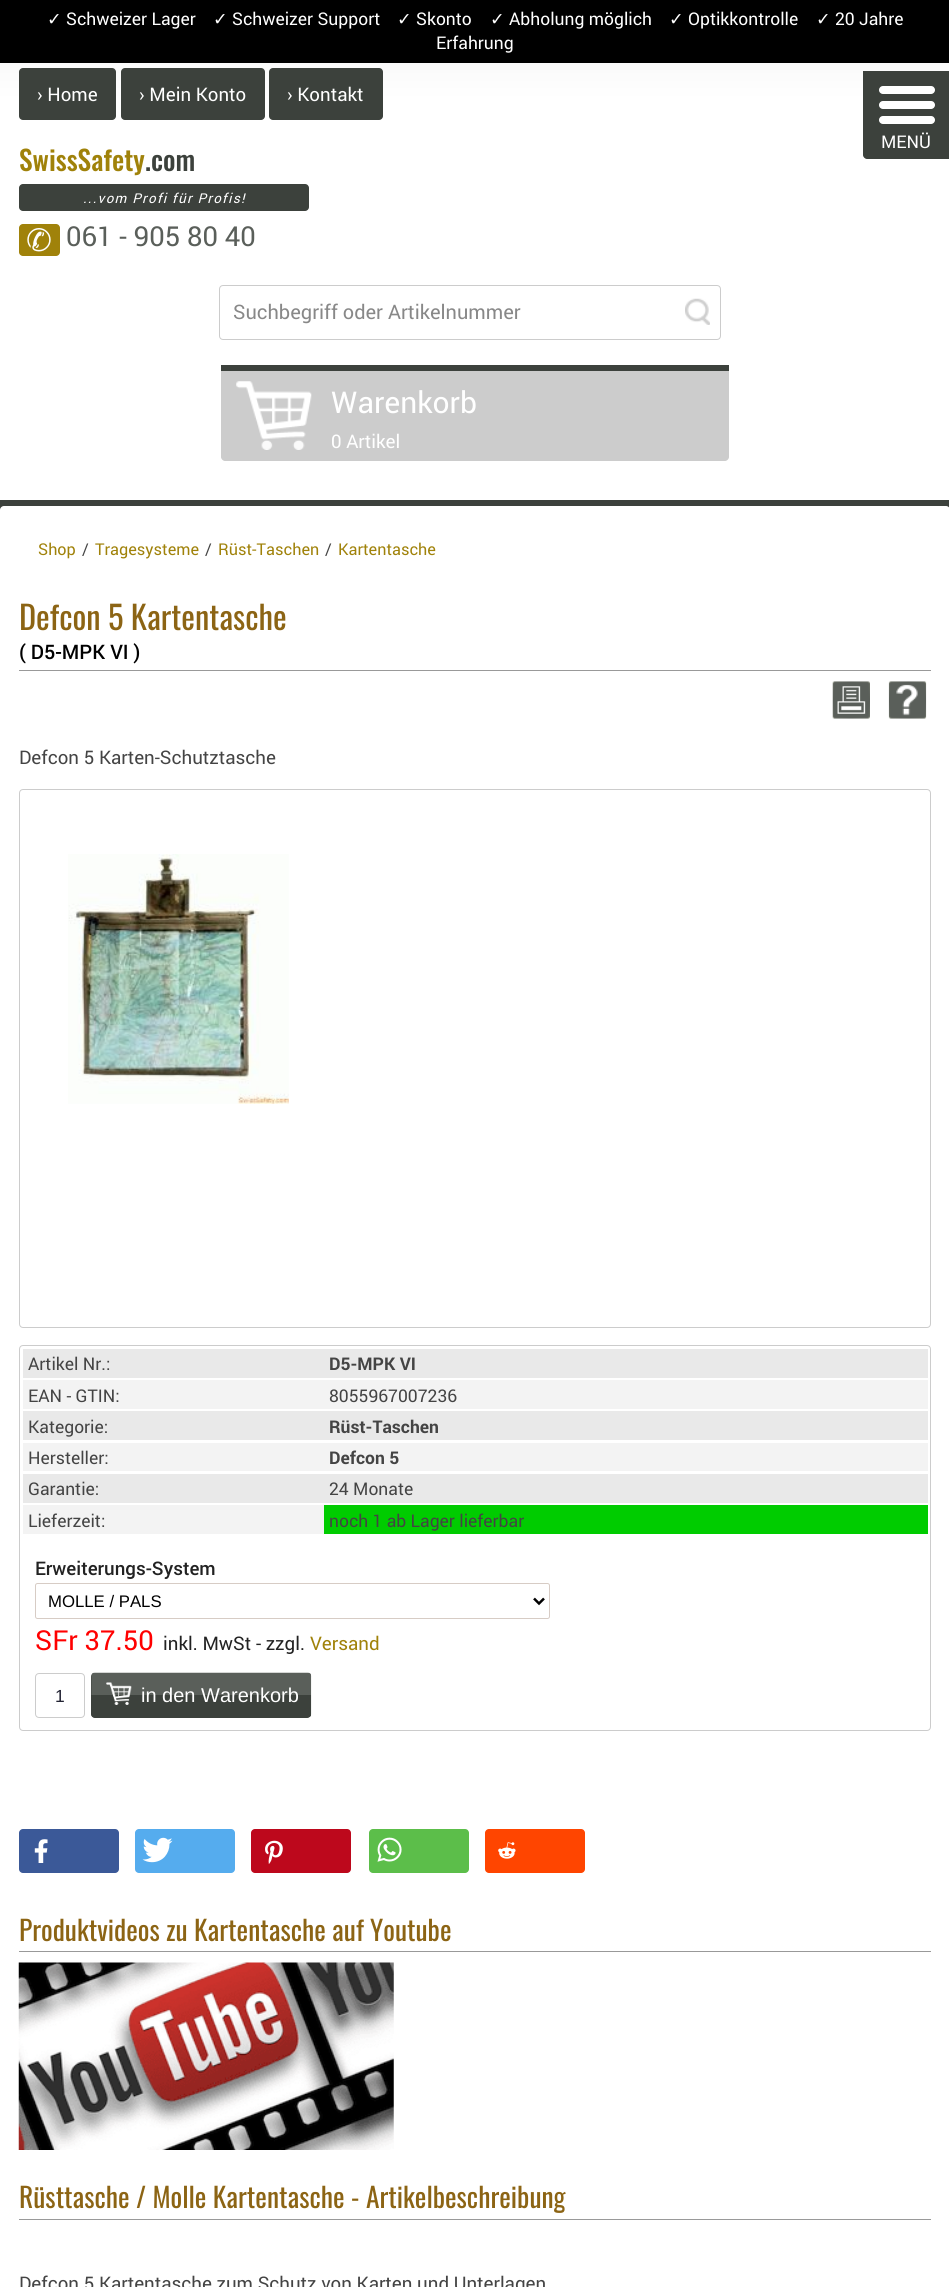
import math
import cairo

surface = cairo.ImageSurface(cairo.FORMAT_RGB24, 949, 2287)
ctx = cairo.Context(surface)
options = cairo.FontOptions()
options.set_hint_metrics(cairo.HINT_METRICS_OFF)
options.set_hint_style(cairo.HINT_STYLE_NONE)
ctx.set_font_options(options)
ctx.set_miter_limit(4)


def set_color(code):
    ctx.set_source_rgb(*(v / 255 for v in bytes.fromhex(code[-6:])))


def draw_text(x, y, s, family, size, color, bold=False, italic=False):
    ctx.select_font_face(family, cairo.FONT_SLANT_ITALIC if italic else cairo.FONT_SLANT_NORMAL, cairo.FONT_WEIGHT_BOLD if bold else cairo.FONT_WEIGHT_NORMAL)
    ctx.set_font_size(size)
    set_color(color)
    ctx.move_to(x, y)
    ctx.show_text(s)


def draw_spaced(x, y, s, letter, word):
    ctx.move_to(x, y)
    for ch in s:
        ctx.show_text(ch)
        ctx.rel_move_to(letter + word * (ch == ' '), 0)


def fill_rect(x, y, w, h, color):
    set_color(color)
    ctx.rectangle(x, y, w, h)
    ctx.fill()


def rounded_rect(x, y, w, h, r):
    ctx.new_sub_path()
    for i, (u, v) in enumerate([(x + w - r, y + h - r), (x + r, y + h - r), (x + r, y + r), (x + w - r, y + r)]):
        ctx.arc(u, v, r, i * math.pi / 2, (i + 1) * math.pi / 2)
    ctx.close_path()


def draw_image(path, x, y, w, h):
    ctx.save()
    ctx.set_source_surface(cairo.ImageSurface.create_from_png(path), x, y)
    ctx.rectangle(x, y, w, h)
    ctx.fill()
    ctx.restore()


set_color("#3c413c")
ctx.paint()
gradient = cairo.LinearGradient(475, 0, 475, 500)
gradient.add_color_stop_rgba(0, 0.949, 0.949, 0.949, 1)
gradient.add_color_stop_rgba(0.2, 1, 1, 1, 1)
ctx.set_source(gradient)
ctx.rectangle(0, 63, 949, 437)
ctx.fill()
fill_rect(0, 0, 949, 63, "#000000")
draw_text(47, 25, "✓", "DejaVu Sans", 17.5, "#ffffff")
draw_text(66, 25, "Schweizer Lager", "Roboto", 17.5, "#ffffff")
draw_text(213, 25, "✓", "DejaVu Sans", 17.5, "#ffffff")
draw_text(232, 25, "Schweizer Support", "Roboto", 17.5, "#ffffff")
draw_text(397, 25, "✓", "DejaVu Sans", 17.5, "#ffffff")
draw_text(416, 25, "Skonto", "Roboto", 17.5, "#ffffff")
draw_text(490, 25, "✓", "DejaVu Sans", 17.5, "#ffffff")
draw_text(509, 25, "Abholung möglich", "Roboto", 17.5, "#ffffff")
draw_text(669, 25, "✓", "DejaVu Sans", 17.5, "#ffffff")
draw_text(688, 25, "Optikkontrolle", "Roboto", 17.5, "#ffffff")
draw_text(816, 25, "✓", "DejaVu Sans", 17.5, "#ffffff")
draw_text(835, 25, "20 Jahre", "Roboto", 17.5, "#ffffff")
draw_text(436, 49, "Erfahrung", "Roboto", 17.5, "#ffffff")
set_color("#3c413c")
rounded_rect(19, 68, 97, 52, 4)
ctx.fill()
draw_text(37, 101, "› Home", "Roboto", 18.75, "#ffffff")
set_color("#3c413c")
rounded_rect(121, 68, 144, 52, 4)
ctx.fill()
draw_text(139, 101, "› Mein Konto", "Roboto", 18.75, "#ffffff")
set_color("#3c413c")
rounded_rect(269, 68, 114, 52, 4)
ctx.fill()
draw_text(287, 101, "› Kontakt", "Roboto", 18.75, "#ffffff")
set_color("#3c413c")
ctx.new_path()
ctx.move_to(863, 71)
ctx.line_to(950, 71)
ctx.line_to(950, 159)
ctx.line_to(867, 159)
ctx.curve_to(865, 159, 863, 157, 863, 155)
ctx.close_path()
ctx.fill()
set_color("#ffffff")
rounded_rect(879, 86, 56, 8, 4)
ctx.fill()
rounded_rect(879, 101, 56, 8, 4)
ctx.fill()
rounded_rect(879, 116, 56, 8, 4)
ctx.fill()
draw_text(881, 148, "MENÜ", "Roboto", 17.5, "#ffffff")
draw_text(19, 171, "SwissSafety", "Oswald Medium", 27.5, "#a0820a")
draw_text(145, 171, ".com", "Oswald Medium", 27.5, "#3c413c")
rounded_rect(19, 184, 290, 27, 4)
ctx.fill()
ctx.select_font_face("Roboto", cairo.FONT_SLANT_ITALIC)
ctx.set_font_size(13.5)
set_color("#ffffff")
draw_spaced(83, 203, "...vom Profi für Profis!", 1.25, 0)
set_color("#a0820a")
rounded_rect(19, 224, 41, 32, 4)
ctx.fill()
draw_text(26, 251, "✆", "DejaVu Sans", 31, "#ffffff")
draw_text(66, 246, "061 - 905 80 40", "Roboto", 27.5, "#5a5f5a")
rounded_rect(219.5, 285.5, 501, 54, 3.5)
set_color("#cccccc")
ctx.set_line_width(1)
ctx.stroke()
draw_text(233, 319, "Suchbegriff oder Artikelnummer", "Roboto", 20, "#888888")
draw_image("assets/img1.png", 685, 298, 25, 27)
set_color("#cccccc")
ctx.new_path()
ctx.move_to(221, 365)
ctx.line_to(729, 365)
ctx.line_to(729, 457)
ctx.curve_to(729, 459, 727, 461, 725, 461)
ctx.line_to(225, 461)
ctx.curve_to(223, 461, 221, 459, 221, 457)
ctx.close_path()
ctx.fill()
draw_image("assets/img2.png", 236, 381, 76, 69)
fill_rect(221, 365, 508, 6, "#3c413c")
draw_text(331, 413, "Warenkorb", "Roboto", 30, "#ffffff")
draw_text(331, 448, "0 Artikel", "Roboto", 18.75, "#ffffff")
rounded_rect(0, 506, 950, 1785, 4)
ctx.fill()
draw_text(38, 555, "Shop", "Roboto", 16.25, "#a0820a")
draw_text(82, 555, "/", "Roboto", 16.25, "#444444")
draw_text(95, 555, "Tragesysteme", "Roboto", 16.25, "#a0820a")
draw_text(205, 555, "/", "Roboto", 16.25, "#444444")
draw_text(218, 555, "Rüst-Taschen", "Roboto", 16.25, "#a0820a")
draw_text(325, 555, "/", "Roboto", 16.25, "#444444")
draw_text(338, 555, "Kartentasche", "Roboto", 16.25, "#a0820a")
fill_rect(19, 670, 912, 1, "#999999")
draw_text(19, 630, "Defcon 5 Kartentasche", "Oswald", 32.5, "#8c6414")
draw_text(19, 659, "( D5-MPK VI )", "Roboto Medium", 20, "#000000")
draw_image("assets/img3.png", 832, 681, 38, 38)
draw_image("assets/img4.png", 888, 681, 39, 38)
draw_text(19, 764, "Defcon 5 Karten-Schutztasche", "Roboto", 18.75, "#444444")
rounded_rect(19.5, 789.5, 911, 538, 3.5)
set_color("#cccccc")
ctx.stroke()
draw_image("assets/img5.png", 68, 854, 221, 250)
rounded_rect(19.5, 1345.5, 911, 385, 3.5)
ctx.stroke()
fill_rect(23, 1349, 905, 29, "#e9e9e9")
draw_text(28, 1370, "Artikel Nr.:", "Roboto", 17.5, "#444444")
draw_text(329, 1370, "D5-MPK VI", "Roboto", 17.5, "#444444", bold=True)
fill_rect(23, 1380, 905, 29, "#f3f3f3")
draw_text(28, 1402, "EAN - GTIN:", "Roboto", 17.5, "#444444")
draw_text(329, 1402, "8055967007236", "Roboto", 17.5, "#444444")
fill_rect(23, 1411, 905, 29, "#e9e9e9")
draw_text(28, 1433, "Kategorie:", "Roboto", 17.5, "#444444")
draw_text(329, 1433, "Rüst-Taschen", "Roboto", 17.5, "#444444", bold=True)
fill_rect(23, 1443, 905, 28, "#f3f3f3")
draw_text(28, 1464, "Hersteller:", "Roboto", 17.5, "#444444")
draw_text(329, 1464, "Defcon 5", "Roboto", 17.5, "#444444", bold=True)
fill_rect(23, 1474, 905, 29, "#e9e9e9")
draw_text(28, 1495, "Garantie:", "Roboto", 17.5, "#444444")
draw_text(329, 1495, "24 Monate", "Roboto", 17.5, "#444444")
fill_rect(23, 1505, 301, 29, "#f3f3f3")
draw_text(28, 1527, "Lieferzeit:", "Roboto", 17.5, "#444444")
fill_rect(324, 1505, 604, 29, "#00cc00")
draw_text(329, 1527, "noch 1 ab Lager lieferbar", "Roboto", 17.5, "#444444")
draw_text(35, 1575, "Erweiterungs-System", "Roboto Medium", 18.75, "#222222")
rounded_rect(35.5, 1583.5, 514, 35, 2)
set_color("#d7ccc5")
ctx.stroke()
ctx.new_path()
ctx.move_to(534, 1598.5)
ctx.line_to(539, 1603.5)
ctx.line_to(544, 1598.5)
set_color("#000000")
ctx.set_line_width(2.5)
ctx.stroke()
draw_text(48, 1607, "MOLLE / PALS", "Liberation Sans", 16.75, "#000000")
draw_text(35, 1650, "SFr 37.50", "Roboto", 27.5, "#ff0000")
draw_text(163, 1650, "inkl. MwSt - zzgl.", "Roboto", 18.75, "#222222")
draw_text(310, 1650, "Versand", "Roboto", 18.75, "#a0820a")
rounded_rect(35.5, 1673.5, 49, 44, 3.5)
set_color("#cccccc")
ctx.set_line_width(1)
ctx.stroke()
draw_text(55, 1702, "1", "Liberation Sans", 17.5, "#222333")
set_color("#3c413c")
rounded_rect(91, 1673, 220, 45, 4)
ctx.fill()
draw_image("assets/img6.png", 91, 1672, 221, 46)
draw_text(141, 1702, "in den Warenkorb", "Liberation Sans", 20, "#ffffff")
set_color("#3b5998")
rounded_rect(19, 1829, 100, 44, 4)
ctx.fill()
draw_image("assets/img7.png", 34, 1839, 14, 24)
set_color("#55acee")
rounded_rect(135, 1829, 100, 44, 4)
ctx.fill()
draw_image("assets/img8.png", 142, 1837, 31, 26)
set_color("#bd081c")
rounded_rect(251, 1829, 100, 44, 4)
ctx.fill()
draw_image("assets/img9.png", 265, 1840, 18, 24)
set_color("#5cbe4a")
rounded_rect(369, 1829, 100, 44, 4)
ctx.fill()
draw_image("assets/img10.png", 377, 1837, 25, 25)
set_color("#ff4500")
rounded_rect(485, 1829, 100, 44, 4)
ctx.fill()
draw_image("assets/img11.png", 498, 1842, 18, 17)
fill_rect(19, 1951, 912, 1, "#999999")
draw_text(19, 1941, "Produktvideos zu Kartentasche auf Youtube", "Oswald", 27.5, "#8c6414")
draw_image("assets/img12.png", 18, 1962, 376, 188)
fill_rect(19, 2219, 912, 1, "#999999")
draw_text(19, 2208, "Rüsttasche / Molle Kartentasche - Artikelbeschreibung", "Oswald", 27.5, "#8c6414")
draw_text(19, 2290, "Defcon 5 Kartentasche zum Schutz von Karten und Unterlagen", "Roboto", 18.75, "#444444")
surface.write_to_png("output.png")
